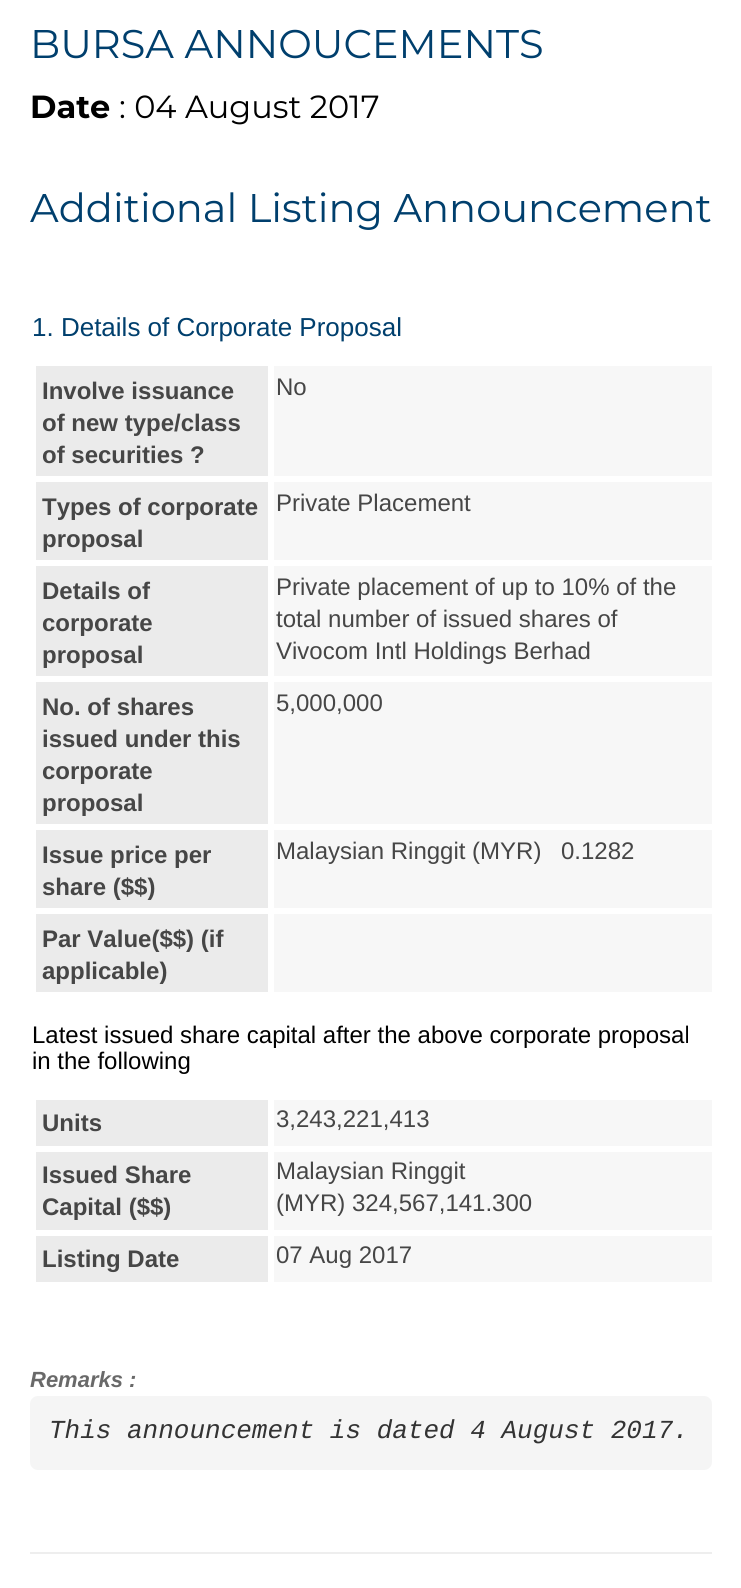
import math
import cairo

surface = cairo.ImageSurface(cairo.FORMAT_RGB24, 741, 1588)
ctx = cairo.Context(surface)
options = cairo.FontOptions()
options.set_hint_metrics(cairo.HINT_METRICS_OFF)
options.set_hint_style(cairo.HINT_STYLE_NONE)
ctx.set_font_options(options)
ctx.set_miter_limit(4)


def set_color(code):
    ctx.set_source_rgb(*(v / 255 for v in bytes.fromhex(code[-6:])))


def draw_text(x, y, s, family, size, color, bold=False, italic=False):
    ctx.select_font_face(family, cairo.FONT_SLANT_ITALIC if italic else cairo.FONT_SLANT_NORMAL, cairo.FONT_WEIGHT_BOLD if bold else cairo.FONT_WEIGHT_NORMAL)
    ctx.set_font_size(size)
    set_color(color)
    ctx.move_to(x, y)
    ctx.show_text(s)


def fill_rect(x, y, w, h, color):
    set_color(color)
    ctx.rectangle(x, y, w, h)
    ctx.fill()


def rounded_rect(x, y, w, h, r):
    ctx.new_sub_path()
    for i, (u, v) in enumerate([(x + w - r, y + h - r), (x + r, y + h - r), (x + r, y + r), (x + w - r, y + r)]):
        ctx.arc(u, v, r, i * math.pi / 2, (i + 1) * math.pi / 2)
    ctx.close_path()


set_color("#ffffff")
ctx.paint()
draw_text(30, 58, "BURSA ANNOUCEMENTS", "Montserrat", 40, "#003f6d")
draw_text(30, 118, "Date", "Montserrat", 32, "#000000", bold=True)
draw_text(119, 118, ": 04 August 2017", "Montserrat", 32, "#000000")
draw_text(30, 222, "Additional Listing Announcement", "Montserrat", 40, "#003f6d")
draw_text(32, 336, "1. Details of Corporate Proposal", "Liberation Sans", 26, "#003f6d")
fill_rect(36, 366, 232, 110, "#ebebeb")
draw_text(42, 399, "Involve issuance", "Liberation Sans", 24, "#464646", bold=True)
draw_text(42, 431, "of new type/class", "Liberation Sans", 24, "#464646", bold=True)
draw_text(42, 463, "of securities ?", "Liberation Sans", 24, "#464646", bold=True)
fill_rect(274, 366, 438, 110, "#f7f7f7")
draw_text(276, 395, "No", "Liberation Sans", 24, "#464646")
fill_rect(36, 482, 232, 78, "#ebebeb")
draw_text(42, 515, "Types of corporate", "Liberation Sans", 24, "#464646", bold=True)
draw_text(42, 547, "proposal", "Liberation Sans", 24, "#464646", bold=True)
fill_rect(274, 482, 438, 78, "#f7f7f7")
draw_text(276, 511, "Private Placement", "Liberation Sans", 24, "#464646")
fill_rect(36, 566, 232, 110, "#ebebeb")
draw_text(42, 599, "Details of", "Liberation Sans", 24, "#464646", bold=True)
draw_text(42, 631, "corporate", "Liberation Sans", 24, "#464646", bold=True)
draw_text(42, 663, "proposal", "Liberation Sans", 24, "#464646", bold=True)
fill_rect(274, 566, 438, 110, "#f7f7f7")
draw_text(276, 595, "Private placement of up to 10% of the", "Liberation Sans", 24, "#464646")
draw_text(276, 627, "total number of issued shares of", "Liberation Sans", 24, "#464646")
draw_text(276, 659, "Vivocom Intl Holdings Berhad", "Liberation Sans", 24, "#464646")
fill_rect(36, 682, 232, 142, "#ebebeb")
draw_text(42, 715, "No. of shares", "Liberation Sans", 24, "#464646", bold=True)
draw_text(42, 747, "issued under this", "Liberation Sans", 24, "#464646", bold=True)
draw_text(42, 779, "corporate", "Liberation Sans", 24, "#464646", bold=True)
draw_text(42, 811, "proposal", "Liberation Sans", 24, "#464646", bold=True)
fill_rect(274, 682, 438, 142, "#f7f7f7")
draw_text(276, 711, "5,000,000", "Liberation Sans", 24, "#464646")
fill_rect(36, 830, 232, 78, "#ebebeb")
draw_text(42, 863, "Issue price per", "Liberation Sans", 24, "#464646", bold=True)
draw_text(42, 895, "share ($$)", "Liberation Sans", 24, "#464646", bold=True)
fill_rect(274, 830, 438, 78, "#f7f7f7")
draw_text(276, 859, "Malaysian Ringgit (MYR)", "Liberation Sans", 24, "#464646")
draw_text(561, 859, "0.1282", "Liberation Sans", 24, "#464646")
fill_rect(36, 914, 232, 78, "#ebebeb")
draw_text(42, 947, "Par Value($$) (if", "Liberation Sans", 24, "#464646", bold=True)
draw_text(42, 979, "applicable)", "Liberation Sans", 24, "#464646", bold=True)
fill_rect(274, 914, 438, 78, "#f7f7f7")
draw_text(32, 1043, "Latest issued share capital after the above corporate proposal", "Liberation Sans", 24, "#000000")
draw_text(32, 1069, "in the following", "Liberation Sans", 24, "#000000")
fill_rect(36, 1100, 232, 46, "#ebebeb")
draw_text(42, 1131, "Units", "Liberation Sans", 24, "#464646", bold=True)
fill_rect(274, 1100, 438, 46, "#f7f7f7")
draw_text(276, 1127, "3,243,221,413", "Liberation Sans", 24, "#464646")
fill_rect(36, 1152, 232, 78, "#ebebeb")
draw_text(42, 1183, "Issued Share", "Liberation Sans", 24, "#464646", bold=True)
draw_text(42, 1215, "Capital ($$)", "Liberation Sans", 24, "#464646", bold=True)
fill_rect(274, 1152, 438, 78, "#f7f7f7")
draw_text(276, 1179, "Malaysian Ringgit", "Liberation Sans", 24, "#464646")
draw_text(276, 1211, "(MYR) 324,567,141.300", "Liberation Sans", 24, "#464646")
fill_rect(36, 1236, 232, 46, "#ebebeb")
draw_text(42, 1267, "Listing Date", "Liberation Sans", 24, "#464646", bold=True)
fill_rect(274, 1236, 438, 46, "#f7f7f7")
draw_text(276, 1263, "07 Aug 2017", "Liberation Sans", 24, "#464646")
draw_text(30, 1387, "Remarks :", "Liberation Sans", 22, "#696969", bold=True, italic=True)
set_color("#f5f5f5")
rounded_rect(30, 1396, 682, 74, 8)
ctx.fill()
draw_text(49, 1438, "This announcement is dated 4 August 2017.", "Liberation Mono", 26, "#333333", italic=True)
fill_rect(30, 1552, 682, 2, "#eeeeee")
surface.write_to_png("output.png")
